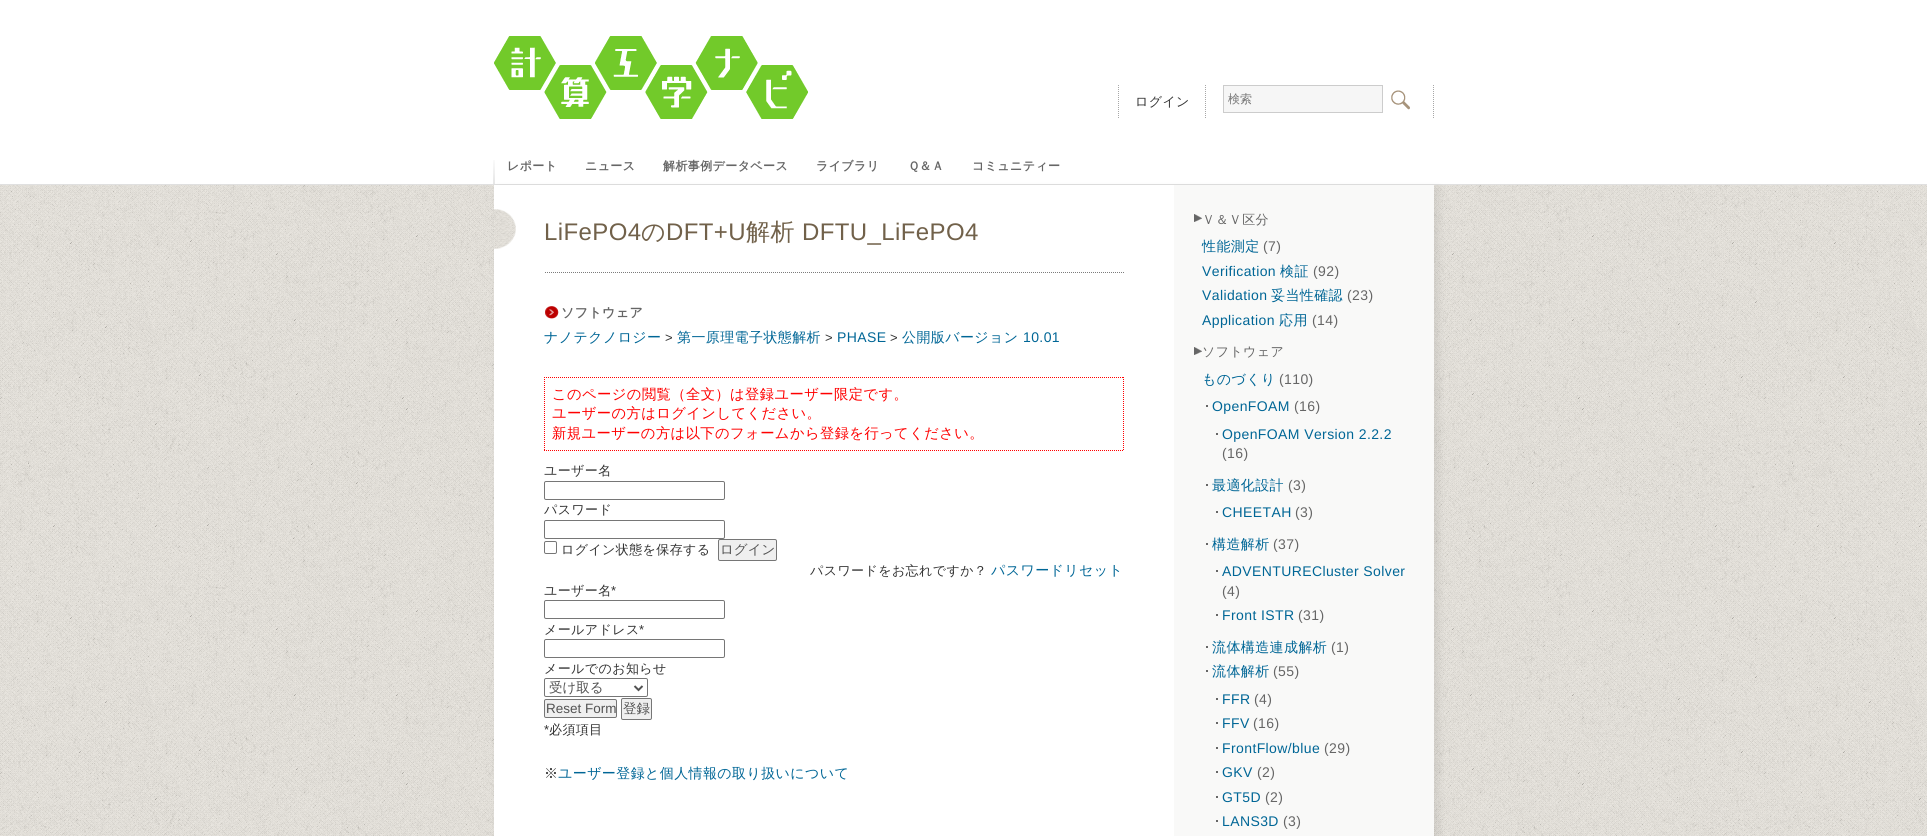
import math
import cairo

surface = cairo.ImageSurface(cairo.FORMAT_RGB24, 1927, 836)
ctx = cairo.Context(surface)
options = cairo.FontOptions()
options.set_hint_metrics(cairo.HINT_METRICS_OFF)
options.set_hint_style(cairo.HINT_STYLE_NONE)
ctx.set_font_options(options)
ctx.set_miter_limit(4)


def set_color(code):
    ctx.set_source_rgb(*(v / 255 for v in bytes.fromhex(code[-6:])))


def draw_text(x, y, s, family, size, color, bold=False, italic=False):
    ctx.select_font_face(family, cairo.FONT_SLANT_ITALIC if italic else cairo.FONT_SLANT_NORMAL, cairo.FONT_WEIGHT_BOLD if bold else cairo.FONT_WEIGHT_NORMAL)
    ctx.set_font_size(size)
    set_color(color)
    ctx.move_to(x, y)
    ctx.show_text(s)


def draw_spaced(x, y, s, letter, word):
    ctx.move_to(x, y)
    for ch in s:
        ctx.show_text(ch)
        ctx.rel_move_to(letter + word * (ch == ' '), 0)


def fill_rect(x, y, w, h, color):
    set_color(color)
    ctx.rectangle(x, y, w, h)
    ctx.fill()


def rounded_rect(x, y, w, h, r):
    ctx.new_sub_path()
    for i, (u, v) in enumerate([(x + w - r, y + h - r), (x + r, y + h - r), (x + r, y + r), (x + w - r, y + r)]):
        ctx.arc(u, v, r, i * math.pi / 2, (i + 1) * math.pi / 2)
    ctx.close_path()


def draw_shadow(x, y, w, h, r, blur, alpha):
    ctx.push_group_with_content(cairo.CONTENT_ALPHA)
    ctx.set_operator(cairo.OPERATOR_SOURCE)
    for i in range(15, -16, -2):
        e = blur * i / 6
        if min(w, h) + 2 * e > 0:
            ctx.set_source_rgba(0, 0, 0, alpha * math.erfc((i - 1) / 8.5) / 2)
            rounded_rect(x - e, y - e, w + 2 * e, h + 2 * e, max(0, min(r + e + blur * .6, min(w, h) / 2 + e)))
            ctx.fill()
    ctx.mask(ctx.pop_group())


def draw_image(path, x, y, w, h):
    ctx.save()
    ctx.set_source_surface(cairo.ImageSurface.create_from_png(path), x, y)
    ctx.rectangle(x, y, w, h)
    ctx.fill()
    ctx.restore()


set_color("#ffffff")
ctx.paint()
fill_rect(0, 184, 1927, 1, "#e0e0e0")
draw_image("assets/img1.png", 494, 36, 314, 83)
ctx.new_path()
ctx.move_to(1433.5, 85)
ctx.line_to(1433.5, 119)
set_color("#a7a7a7")
ctx.set_line_width(1)
ctx.set_dash([1, 1])
ctx.stroke()
ctx.new_path()
ctx.move_to(1205.5, 85)
ctx.line_to(1205.5, 119)
ctx.stroke()
ctx.new_path()
ctx.move_to(1118.5, 85)
ctx.line_to(1118.5, 119)
ctx.stroke()
ctx.select_font_face("WenQuanYi Zen Hei Medium")
ctx.set_font_size(13)
set_color("#333333")
draw_spaced(1135, 106, "ログイン", 0.4, 0)
set_color("#f6f6f6")
ctx.rectangle(1223.5, 85.5, 159, 27)
ctx.fill_preserve()
set_color("#cccccc")
ctx.set_dash([])
ctx.stroke()
draw_text(1228, 103, "検索", "WenQuanYi Zen Hei Medium", 12, "#757575")
draw_image("assets/img2.png", 1391, 90, 19, 20)
draw_image("assets/img4.png", 0, 185, 1927, 651)
set_color("#000000")
draw_shadow(497, 188, 942, 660, 0, 4, 0.08)
draw_image("assets/img3.png", 493, 160, 2, 24)
ctx.select_font_face("WenQuanYi Zen Hei", cairo.FONT_SLANT_NORMAL, cairo.FONT_WEIGHT_BOLD)
set_color("#666666")
draw_spaced(507, 170, "レポート", 0.4, 0)
draw_spaced(585, 170, "ニュース", 0.4, 0)
draw_spaced(663, 170, "解析事例データベース", 0.4, 0)
draw_spaced(816, 170, "ライブラリ", 0.4, 0)
draw_spaced(908, 170, "Ｑ＆Ａ", 0.4, 0)
draw_spaced(972, 170, "コミュニティー", 0.4, 0)
fill_rect(494, 185, 680, 651, "#ffffff")
fill_rect(1174, 185, 260, 651, "#f9f9f8")
draw_image("assets/img5.png", 494, 209, 630, 64)
ctx.select_font_face("Liberation Sans")
ctx.set_font_size(24)
set_color("#71614a")
draw_spaced(544, 240, "LiFePO4", 0.4, 0)
ctx.select_font_face("WenQuanYi Zen Hei Medium")
draw_spaced(641, 240, "の", 0.4, 0)
ctx.select_font_face("Liberation Sans")
draw_spaced(666, 240, "DFT+U", 0.4, 0)
ctx.select_font_face("WenQuanYi Zen Hei Medium")
draw_spaced(746, 240, "解析", 0.4, 0)
ctx.select_font_face("Liberation Sans")
draw_spaced(802, 240, "DFTU_LiFePO4", 0.4, 0)
draw_image("assets/img6.png", 545, 306, 14, 13)
ctx.select_font_face("WenQuanYi Zen Hei", cairo.FONT_SLANT_NORMAL, cairo.FONT_WEIGHT_BOLD)
ctx.set_font_size(13)
set_color("#666666")
draw_spaced(561, 317, "ソフトウェア", 0.4, 0)
ctx.select_font_face("WenQuanYi Zen Hei Medium")
ctx.set_font_size(14)
set_color("#006696")
draw_spaced(544, 342, "ナノテクノロジー", 0.4, 0)
ctx.select_font_face("Liberation Sans")
ctx.set_font_size(13)
set_color("#333333")
draw_spaced(665, 342, ">", 0.4, 0)
ctx.select_font_face("WenQuanYi Zen Hei Medium")
ctx.set_font_size(14)
set_color("#006696")
draw_spaced(677, 342, "第一原理電子状態解析", 0.4, 0)
ctx.select_font_face("Liberation Sans")
ctx.set_font_size(13)
set_color("#333333")
draw_spaced(825, 342, ">", 0.4, 0)
ctx.set_font_size(14)
set_color("#006696")
draw_spaced(837, 342, "PHASE", 0.4, 0)
ctx.set_font_size(13)
set_color("#333333")
draw_spaced(890, 342, ">", 0.4, 0)
ctx.select_font_face("WenQuanYi Zen Hei Medium")
ctx.set_font_size(14)
set_color("#006696")
draw_spaced(902, 342, "公開版バージョン", 0.4, 0)
ctx.select_font_face("Liberation Sans")
draw_spaced(1023, 342, "10.01", 0.4, 0)
ctx.new_path()
ctx.move_to(544, 377.5)
ctx.line_to(1124, 377.5)
set_color("#ff0000")
ctx.set_dash([1, 1])
ctx.stroke()
ctx.new_path()
ctx.move_to(1123.5, 377)
ctx.line_to(1123.5, 451)
ctx.stroke()
ctx.new_path()
ctx.move_to(544, 450.5)
ctx.line_to(1124, 450.5)
ctx.stroke()
ctx.new_path()
ctx.move_to(544.5, 377)
ctx.line_to(544.5, 451)
ctx.stroke()
ctx.select_font_face("WenQuanYi Zen Hei Medium")
ctx.set_font_size(14.3)
draw_spaced(552, 399, "このページの閲覧（全文）は登録ユーザー限定です。", 0.4, 0)
draw_spaced(552, 418, "ユーザーの方はログインしてください。", 0.4, 0)
draw_spaced(552, 438, "新規ユーザーの方は以下のフォームから登録を行ってください。", 0.4, 0)
ctx.set_font_size(13)
set_color("#333333")
draw_spaced(544, 475, "ユーザー名", 0.4, 0)
rounded_rect(544.5, 481.5, 180, 18, 1.5)
set_color("#767676")
ctx.set_dash([])
ctx.stroke()
set_color("#333333")
draw_spaced(544, 514, "パスワード", 0.4, 0)
rounded_rect(544.5, 520.5, 180, 18, 1.5)
set_color("#767676")
ctx.stroke()
rounded_rect(544.5, 541.5, 12, 12, 1.5)
ctx.stroke()
set_color("#333333")
draw_spaced(561, 554, "ログイン状態を保存する", 0.4, 0)
set_color("#efefef")
rounded_rect(718.5, 539.5, 58, 21, 1.5)
ctx.fill_preserve()
set_color("#767676")
ctx.stroke()
draw_text(720, 554, "ログイン", "WenQuanYi Zen Hei Medium", 13.5, "#525252")
ctx.set_font_size(13)
set_color("#333333")
draw_spaced(810, 575, "パスワードをお忘れですか？", 0.4, 0)
ctx.set_font_size(14)
set_color("#006696")
draw_spaced(991, 575, "パスワードリセット", 0.4, 0)
ctx.set_font_size(13)
set_color("#333333")
draw_spaced(544, 595, "ユーザー名", 0.4, 0)
ctx.select_font_face("Liberation Sans")
draw_spaced(611, 595, "*", 0.4, 0)
rounded_rect(544.5, 600.5, 180, 18, 1.5)
set_color("#767676")
ctx.stroke()
ctx.select_font_face("WenQuanYi Zen Hei Medium")
set_color("#333333")
draw_spaced(544, 634, "メールアドレス", 0.4, 0)
ctx.select_font_face("Liberation Sans")
draw_spaced(639, 634, "*", 0.4, 0)
rounded_rect(544.5, 639.5, 180, 18, 1.5)
set_color("#767676")
ctx.stroke()
ctx.select_font_face("WenQuanYi Zen Hei Medium")
set_color("#333333")
draw_spaced(544, 673, "メールでのお知らせ", 0.4, 0)
rounded_rect(544.5, 678.5, 103, 18, 1.5)
set_color("#767676")
ctx.stroke()
ctx.new_path()
ctx.move_to(634.5, 686)
ctx.line_to(638.5, 690)
ctx.line_to(642.5, 686)
set_color("#525252")
ctx.set_line_width(2)
ctx.stroke()
draw_text(549, 692, "受け取る", "WenQuanYi Zen Hei Medium", 13.5, "#525252")
set_color("#efefef")
rounded_rect(544.5, 699.5, 72, 18, 1.5)
ctx.fill_preserve()
set_color("#767676")
ctx.set_line_width(1)
ctx.stroke()
draw_text(546, 713, "Reset Form", "Liberation Sans", 13.5, "#525252")
set_color("#efefef")
rounded_rect(621.5, 698.5, 30, 21, 1.5)
ctx.fill_preserve()
set_color("#767676")
ctx.stroke()
draw_text(623, 713, "登録", "WenQuanYi Zen Hei Medium", 13.5, "#525252")
ctx.select_font_face("Liberation Sans")
ctx.set_font_size(13)
set_color("#333333")
draw_spaced(544, 734, "*", 0.4, 0)
ctx.select_font_face("WenQuanYi Zen Hei Medium")
draw_spaced(549, 734, "必須項目", 0.4, 0)
ctx.set_font_size(14)
draw_spaced(544, 778, "※", 0.4, 0)
set_color("#006696")
draw_spaced(558, 778, "ユーザー登録と個人情報の取り扱いについて", 0.4, 0)
draw_image("assets/img7.png", 1194, 214, 8, 8)
ctx.set_font_size(13)
set_color("#666666")
draw_spaced(1202, 224, "Ｖ＆Ｖ区分", 0.4, 0)
ctx.set_font_size(14)
set_color("#006696")
draw_spaced(1202, 251, "性能測定", 0.4, 0)
ctx.select_font_face("Liberation Sans")
set_color("#666666")
draw_spaced(1263, 251, "(7)", 0.4, 0)
set_color("#006696")
draw_spaced(1202, 276, "Verification", 0.4, 0)
ctx.select_font_face("WenQuanYi Zen Hei Medium")
draw_spaced(1280, 276, "検証", 0.4, 0)
ctx.select_font_face("Liberation Sans")
set_color("#666666")
draw_spaced(1313, 276, "(92)", 0.4, 0)
set_color("#006696")
draw_spaced(1202, 300, "Validation", 0.4, 0)
ctx.select_font_face("WenQuanYi Zen Hei Medium")
draw_spaced(1271, 300, "妥当性確認", 0.4, 0)
ctx.select_font_face("Liberation Sans")
set_color("#666666")
draw_spaced(1347, 300, "(23)", 0.4, 0)
set_color("#006696")
draw_spaced(1202, 325, "Application", 0.4, 0)
ctx.select_font_face("WenQuanYi Zen Hei Medium")
draw_spaced(1279, 325, "応用", 0.4, 0)
ctx.select_font_face("Liberation Sans")
set_color("#666666")
draw_spaced(1312, 325, "(14)", 0.4, 0)
draw_image("assets/img7.png", 1194, 347, 8, 8)
ctx.select_font_face("WenQuanYi Zen Hei Medium")
ctx.set_font_size(13)
draw_spaced(1202, 356, "ソフトウェア", 0.4, 0)
ctx.set_font_size(14)
set_color("#006696")
draw_spaced(1202, 384, "ものづくり", 0.4, 0)
ctx.select_font_face("Liberation Sans")
set_color("#666666")
draw_spaced(1279, 384, "(110)", 0.4, 0)
fill_rect(1206, 405, 2, 2, "#666666")
set_color("#006696")
draw_spaced(1212, 411, "OpenFOAM", 0.4, 0)
set_color("#666666")
draw_spaced(1294, 411, "(16)", 0.4, 0)
fill_rect(1216, 433, 2, 2, "#666666")
set_color("#006696")
draw_spaced(1222, 439, "OpenFOAM Version 2.2.2", 0.4, 0)
set_color("#666666")
draw_spaced(1222, 458, "(16)", 0.4, 0)
fill_rect(1206, 484, 2, 2, "#666666")
ctx.select_font_face("WenQuanYi Zen Hei Medium")
set_color("#006696")
draw_spaced(1212, 490, "最適化設計", 0.4, 0)
ctx.select_font_face("Liberation Sans")
set_color("#666666")
draw_spaced(1288, 490, "(3)", 0.4, 0)
fill_rect(1216, 511, 2, 2, "#666666")
set_color("#006696")
draw_spaced(1222, 517, "CHEETAH", 0.4, 0)
set_color("#666666")
draw_spaced(1295, 517, "(3)", 0.4, 0)
fill_rect(1206, 543, 2, 2, "#666666")
ctx.select_font_face("WenQuanYi Zen Hei Medium")
set_color("#006696")
draw_spaced(1212, 549, "構造解析", 0.4, 0)
ctx.select_font_face("Liberation Sans")
set_color("#666666")
draw_spaced(1273, 549, "(37)", 0.4, 0)
fill_rect(1216, 570, 2, 2, "#666666")
set_color("#006696")
draw_spaced(1222, 576, "ADVENTURECluster Solver", 0.4, 0)
set_color("#666666")
draw_spaced(1222, 596, "(4)", 0.4, 0)
fill_rect(1216, 614, 2, 2, "#666666")
set_color("#006696")
draw_spaced(1222, 620, "Front ISTR", 0.4, 0)
set_color("#666666")
draw_spaced(1298, 620, "(31)", 0.4, 0)
fill_rect(1206, 646, 2, 2, "#666666")
ctx.select_font_face("WenQuanYi Zen Hei Medium")
set_color("#006696")
draw_spaced(1212, 652, "流体構造連成解析", 0.4, 0)
ctx.select_font_face("Liberation Sans")
set_color("#666666")
draw_spaced(1331, 652, "(1)", 0.4, 0)
fill_rect(1206, 670, 2, 2, "#666666")
ctx.select_font_face("WenQuanYi Zen Hei Medium")
set_color("#006696")
draw_spaced(1212, 676, "流体解析", 0.4, 0)
ctx.select_font_face("Liberation Sans")
set_color("#666666")
draw_spaced(1273, 676, "(55)", 0.4, 0)
fill_rect(1216, 698, 2, 2, "#666666")
set_color("#006696")
draw_spaced(1222, 704, "FFR", 0.4, 0)
set_color("#666666")
draw_spaced(1254, 704, "(4)", 0.4, 0)
fill_rect(1216, 722, 2, 2, "#666666")
set_color("#006696")
draw_spaced(1222, 728, "FFV", 0.4, 0)
set_color("#666666")
draw_spaced(1253, 728, "(16)", 0.4, 0)
fill_rect(1216, 747, 2, 2, "#666666")
set_color("#006696")
draw_spaced(1222, 753, "FrontFlow/blue", 0.4, 0)
set_color("#666666")
draw_spaced(1324, 753, "(29)", 0.4, 0)
fill_rect(1216, 771, 2, 2, "#666666")
set_color("#006696")
draw_spaced(1222, 777, "GKV", 0.4, 0)
set_color("#666666")
draw_spaced(1257, 777, "(2)", 0.4, 0)
fill_rect(1216, 796, 2, 2, "#666666")
set_color("#006696")
draw_spaced(1222, 802, "GT5D", 0.4, 0)
set_color("#666666")
draw_spaced(1265, 802, "(2)", 0.4, 0)
fill_rect(1216, 820, 2, 2, "#666666")
set_color("#006696")
draw_spaced(1222, 826, "LANS3D", 0.4, 0)
set_color("#666666")
draw_spaced(1283, 826, "(3)", 0.4, 0)
surface.write_to_png("output.png")
